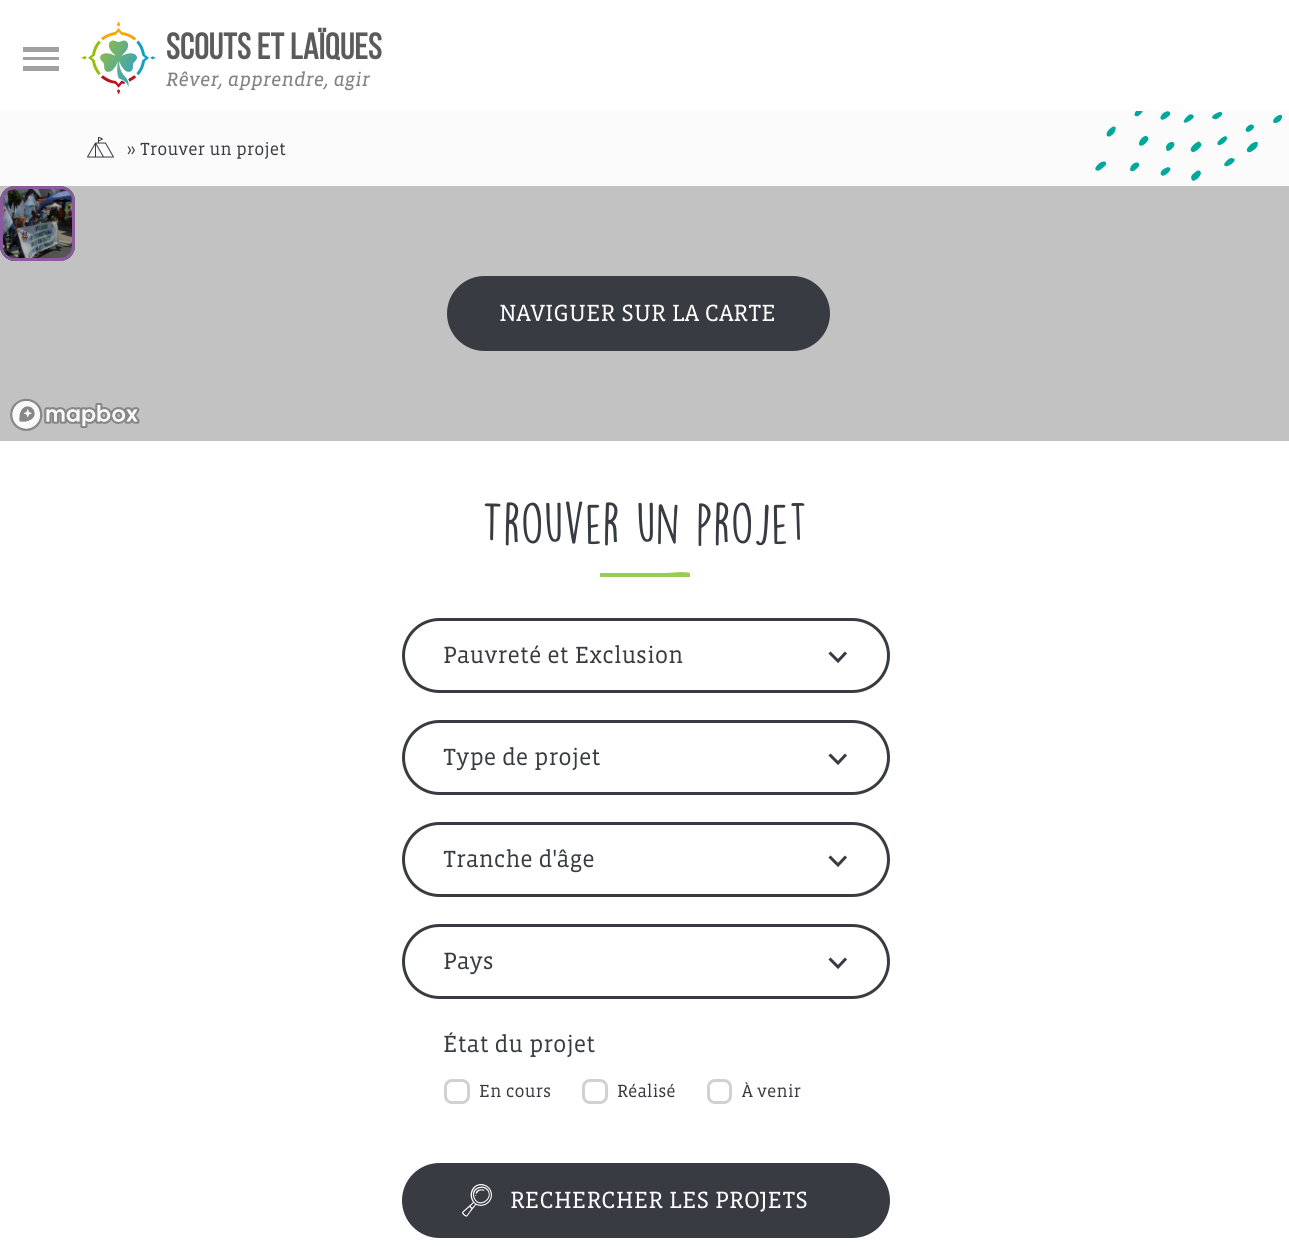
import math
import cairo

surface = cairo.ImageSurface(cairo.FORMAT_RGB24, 1289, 1246)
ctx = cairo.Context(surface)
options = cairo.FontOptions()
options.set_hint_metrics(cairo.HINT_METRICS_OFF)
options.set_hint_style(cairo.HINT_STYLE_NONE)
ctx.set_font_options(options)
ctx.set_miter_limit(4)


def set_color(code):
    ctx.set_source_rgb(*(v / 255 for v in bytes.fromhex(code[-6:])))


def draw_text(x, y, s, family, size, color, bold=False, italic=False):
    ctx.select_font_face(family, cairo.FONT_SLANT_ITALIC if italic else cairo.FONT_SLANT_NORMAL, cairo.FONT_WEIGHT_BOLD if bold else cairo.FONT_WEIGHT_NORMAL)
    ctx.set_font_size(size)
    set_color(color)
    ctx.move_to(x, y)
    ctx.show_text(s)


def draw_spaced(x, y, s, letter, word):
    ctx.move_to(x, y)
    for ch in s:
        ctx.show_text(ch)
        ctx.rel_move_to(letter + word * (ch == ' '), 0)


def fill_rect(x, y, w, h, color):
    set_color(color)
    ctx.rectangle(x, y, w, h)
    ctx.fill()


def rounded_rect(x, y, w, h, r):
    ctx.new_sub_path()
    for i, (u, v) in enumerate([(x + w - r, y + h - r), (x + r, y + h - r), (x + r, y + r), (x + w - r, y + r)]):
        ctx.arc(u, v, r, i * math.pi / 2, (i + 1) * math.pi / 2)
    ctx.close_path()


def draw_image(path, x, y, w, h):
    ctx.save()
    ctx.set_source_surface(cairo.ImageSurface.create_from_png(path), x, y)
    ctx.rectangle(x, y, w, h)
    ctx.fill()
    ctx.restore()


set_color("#ffffff")
ctx.paint()
fill_rect(0, 186, 1289, 255, "#c2c2c2")
fill_rect(23, 47, 36, 5, "#a1a1a1")
fill_rect(23, 57, 36, 3, "#a1a1a1")
fill_rect(23, 66, 36, 5, "#a1a1a1")
draw_image("assets/img1.png", 81, 21, 75, 74)
ctx.select_font_face("Bebas Neue", cairo.FONT_SLANT_NORMAL, cairo.FONT_WEIGHT_BOLD)
ctx.set_font_size(36.5)
set_color("#5b5b5b")
draw_spaced(166, 59, "SCOUTS ET LAÏQUES", 0.4, 0)
draw_text(166, 86, "Rêver, apprendre, agir", "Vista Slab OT", 19.75, "#848484", italic=True)
fill_rect(0, 111, 1289, 75, "#fbfbfb")
draw_image("assets/img2.png", 1095, 111, 188, 70)
draw_image("assets/img3.png", 87, 137, 27, 21)
draw_text(127, 155, "» Trouver un projet", "Vista Slab OT", 18, "#383b41")
draw_image("assets/img4.png", 3, 189, 69, 69)
rounded_rect(1.5, 187.5, 72, 72, 13.5)
set_color("#0276a5")
ctx.set_line_width(3)
ctx.stroke()
draw_image("assets/img5.png", 3, 189, 69, 69)
rounded_rect(1.5, 187.5, 72, 72, 13.5)
set_color("#7a655d")
ctx.stroke()
draw_image("assets/img6.png", 3, 189, 69, 69)
rounded_rect(1.5, 187.5, 72, 72, 13.5)
set_color("#8a5a9c")
ctx.stroke()
draw_image("assets/img7.png", 3, 189, 69, 69)
draw_image("assets/img8.png", 10, 398, 130, 33)
set_color("#383b41")
rounded_rect(447, 276, 383, 75, 37.5)
ctx.fill()
draw_text(499, 321, "NAVIGUER SUR LA CARTE", "Vista Slab OT", 24, "#ffffff")
draw_text(482, 545, "Trouver un projet", "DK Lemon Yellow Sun", 52.5, "#383b41")
set_color("#98cc55")
ctx.new_path()
ctx.move_to(611, 573)
ctx.line_to(600, 573)
ctx.line_to(600, 577)
ctx.line_to(690, 577)
ctx.line_to(690, 573)
ctx.curve_to(684, 571, 671, 573, 665, 573)
ctx.line_to(656, 573)
ctx.line_to(643, 573)
ctx.close_path()
ctx.fill()
ctx.new_path()
ctx.move_to(829.5, 652.5)
ctx.line_to(838, 661)
ctx.line_to(846, 652.5)
set_color("#383b41")
ctx.stroke()
rounded_rect(403.5, 619.5, 485, 72, 36)
ctx.stroke()
draw_text(443, 663, "Pauvreté et Exclusion", "Vista Slab OT", 24, "#383b41")
ctx.new_path()
ctx.move_to(829.5, 754.5)
ctx.line_to(838, 763)
ctx.line_to(846, 754.5)
ctx.stroke()
rounded_rect(403.5, 721.5, 485, 72, 36)
ctx.stroke()
draw_text(443, 765, "Type de projet", "Vista Slab OT", 24, "#383b41")
ctx.new_path()
ctx.move_to(829.5, 856.5)
ctx.line_to(838, 865)
ctx.line_to(846, 856.5)
ctx.stroke()
rounded_rect(403.5, 823.5, 485, 72, 36)
ctx.stroke()
draw_text(443, 867, "Tranche d'âge", "Vista Slab OT", 24, "#383b41")
ctx.new_path()
ctx.move_to(829.5, 958.5)
ctx.line_to(838, 967)
ctx.line_to(846, 958.5)
ctx.stroke()
rounded_rect(403.5, 925.5, 485, 72, 36)
ctx.stroke()
draw_text(443, 969, "Pays", "Vista Slab OT", 24, "#383b41")
draw_text(443, 1052, "État du projet", "Vista Slab OT", 24, "#383b41")
rounded_rect(445.5, 1080.5, 23, 22, 6.5)
set_color("#d1d1d1")
ctx.stroke()
draw_text(479, 1097, "En cours", "Vista Slab OT", 18, "#383b41")
rounded_rect(583.5, 1080.5, 23, 22, 6.5)
set_color("#d1d1d1")
ctx.stroke()
draw_text(617, 1097, "Réalisé", "Vista Slab OT", 18, "#383b41")
rounded_rect(708.5, 1080.5, 22, 22, 6.5)
set_color("#d1d1d1")
ctx.stroke()
draw_text(742, 1097, "À venir", "Vista Slab OT", 18, "#383b41")
rounded_rect(402, 1163, 488, 75, 37.5)
ctx.fill()
draw_image("assets/img9.png", 462, 1184, 30, 33)
draw_text(510, 1208, "RECHERCHER LES PROJETS", "Vista Slab OT", 24, "#ffffff")
surface.write_to_png("output.png")
